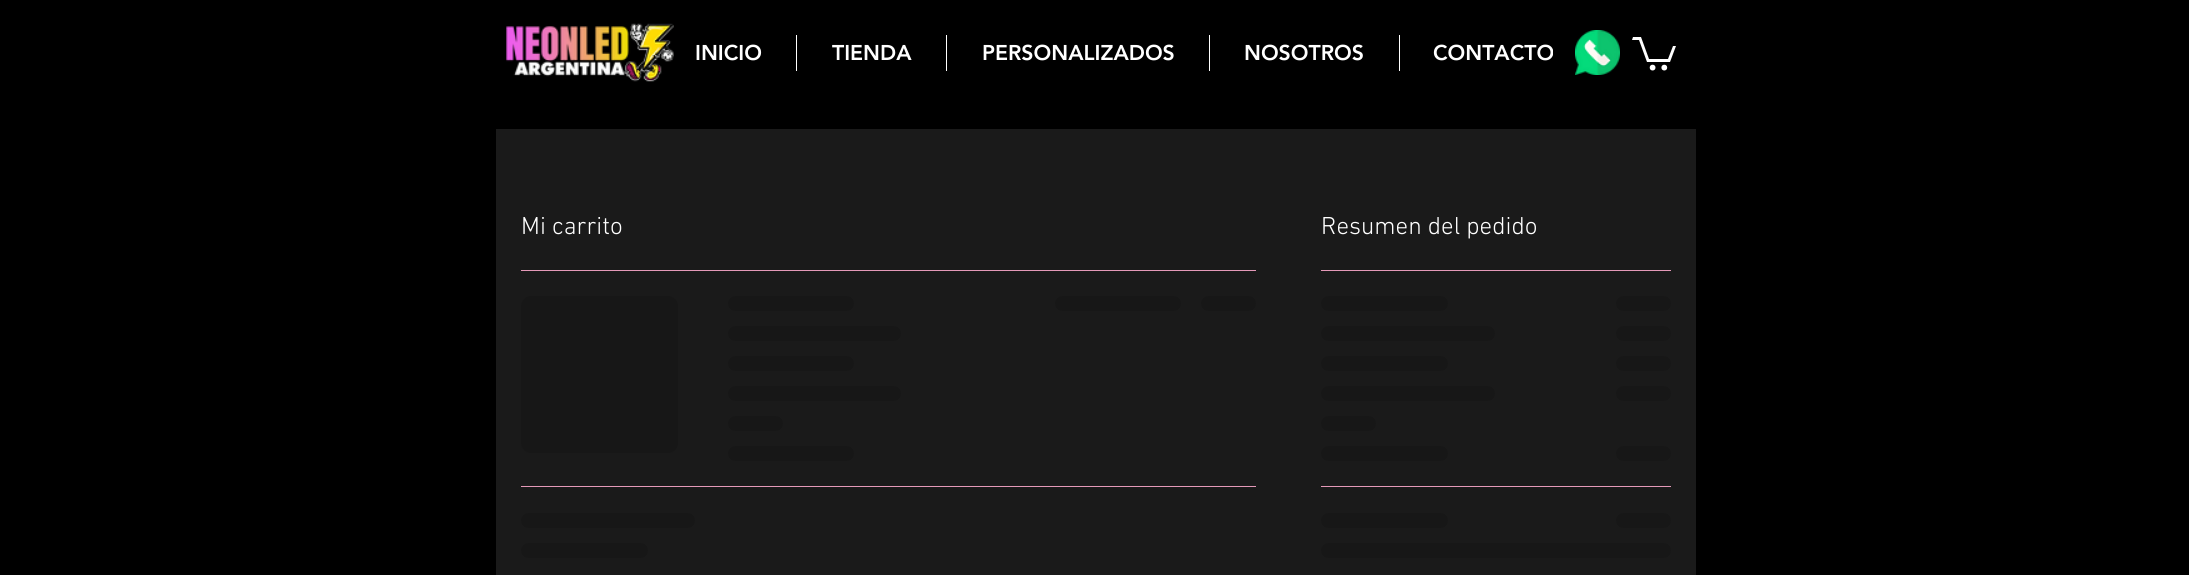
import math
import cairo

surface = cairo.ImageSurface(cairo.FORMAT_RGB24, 2189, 575)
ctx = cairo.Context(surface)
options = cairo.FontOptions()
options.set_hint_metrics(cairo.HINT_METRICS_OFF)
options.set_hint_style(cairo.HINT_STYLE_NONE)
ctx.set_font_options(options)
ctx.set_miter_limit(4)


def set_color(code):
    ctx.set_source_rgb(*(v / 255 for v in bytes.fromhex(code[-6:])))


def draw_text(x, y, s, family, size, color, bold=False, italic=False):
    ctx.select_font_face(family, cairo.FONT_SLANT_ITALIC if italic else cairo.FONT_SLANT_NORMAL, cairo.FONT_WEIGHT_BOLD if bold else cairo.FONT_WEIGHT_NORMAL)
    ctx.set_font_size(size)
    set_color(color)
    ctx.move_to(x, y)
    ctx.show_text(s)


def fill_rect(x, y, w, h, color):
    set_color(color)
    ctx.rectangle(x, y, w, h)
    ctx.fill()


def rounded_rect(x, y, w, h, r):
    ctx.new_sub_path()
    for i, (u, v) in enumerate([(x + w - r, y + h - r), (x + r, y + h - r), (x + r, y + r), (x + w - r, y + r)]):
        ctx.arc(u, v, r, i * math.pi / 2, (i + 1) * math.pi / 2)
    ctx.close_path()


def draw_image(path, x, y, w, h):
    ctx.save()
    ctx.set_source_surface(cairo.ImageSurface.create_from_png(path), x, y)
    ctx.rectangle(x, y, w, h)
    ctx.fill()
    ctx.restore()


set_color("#000000")
ctx.paint()
draw_image("assets/img1.png", 506, 23, 168, 59)
draw_text(695, 60, "INICIO", "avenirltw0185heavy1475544 Black", 21.25, "#ffffff")
fill_rect(796, 35, 1, 36, "#ffffff")
draw_text(832, 60, "TIENDA", "avenirltw0185heavy1475544 Black", 21.25, "#ffffff")
fill_rect(946, 35, 1, 36, "#ffffff")
draw_text(982, 60, "PERSONALIZADOS", "avenirltw0185heavy1475544 Black", 21.25, "#ffffff")
fill_rect(1209, 35, 1, 36, "#ffffff")
draw_text(1244, 60, "NOSOTROS", "avenirltw0185heavy1475544 Black", 21.25, "#ffffff")
fill_rect(1399, 35, 1, 36, "#ffffff")
draw_text(1433, 60, "CONTACTO", "avenirltw0185heavy1475544 Black", 21.25, "#ffffff")
draw_image("assets/img2.png", 1575, 30, 45, 45)
ctx.new_path()
ctx.move_to(1676, 46)
ctx.line_to(1670, 62)
ctx.line_to(1647, 62)
ctx.line_to(1639, 40)
ctx.line_to(1632, 40)
ctx.line_to(1633, 37)
ctx.line_to(1641, 37)
ctx.line_to(1649, 59)
ctx.line_to(1668, 59)
ctx.line_to(1673, 46)
ctx.fill()
ctx.arc(1664.3, 67.6, 2.9, 0, 2 * math.pi)
ctx.fill()
ctx.arc(1652.6, 67.6, 2.9, 0, 2 * math.pi)
ctx.fill()
fill_rect(496, 129, 1200, 446, "#1a1a1a")
fill_rect(521, 270, 735, 1, "#e499b8")
draw_text(521, 234, "Mi carrito", "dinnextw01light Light", 25, "#ffffff")
gradient = cairo.LinearGradient(521, 374, 1146, 374)
gradient.add_color_stop_rgba(0.25, 0.09, 0.09, 0.09, 1)
gradient.add_color_stop_rgba(0.37, 0.082, 0.082, 0.082, 1)
gradient.add_color_stop_rgba(0.63, 0.09, 0.09, 0.09, 1)
ctx.set_source(gradient)
rounded_rect(521, 296, 157, 157, 10)
ctx.fill()
gradient = cairo.LinearGradient(728, 304, 1233, 304)
gradient.add_color_stop_rgba(0.25, 0.09, 0.09, 0.09, 1)
gradient.add_color_stop_rgba(0.37, 0.082, 0.082, 0.082, 1)
gradient.add_color_stop_rgba(0.63, 0.09, 0.09, 0.09, 1)
ctx.set_source(gradient)
rounded_rect(728, 296, 126, 15, 7.5)
ctx.fill()
gradient = cairo.LinearGradient(728, 334, 1423, 334)
gradient.add_color_stop_rgba(0.25, 0.09, 0.09, 0.09, 1)
gradient.add_color_stop_rgba(0.37, 0.082, 0.082, 0.082, 1)
gradient.add_color_stop_rgba(0.63, 0.09, 0.09, 0.09, 1)
ctx.set_source(gradient)
rounded_rect(728, 326, 173, 15, 7.5)
ctx.fill()
gradient = cairo.LinearGradient(728, 364, 1233, 364)
gradient.add_color_stop_rgba(0.25, 0.09, 0.09, 0.09, 1)
gradient.add_color_stop_rgba(0.37, 0.082, 0.082, 0.082, 1)
gradient.add_color_stop_rgba(0.63, 0.09, 0.09, 0.09, 1)
ctx.set_source(gradient)
rounded_rect(728, 356, 126, 15, 7.5)
ctx.fill()
gradient = cairo.LinearGradient(728, 394, 1423, 394)
gradient.add_color_stop_rgba(0.25, 0.09, 0.09, 0.09, 1)
gradient.add_color_stop_rgba(0.37, 0.082, 0.082, 0.082, 1)
gradient.add_color_stop_rgba(0.63, 0.09, 0.09, 0.09, 1)
ctx.set_source(gradient)
rounded_rect(728, 386, 173, 15, 7.5)
ctx.fill()
gradient = cairo.LinearGradient(728, 424, 948, 424)
gradient.add_color_stop_rgba(0.25, 0.09, 0.09, 0.09, 1)
gradient.add_color_stop_rgba(0.37, 0.082, 0.082, 0.082, 1)
gradient.add_color_stop_rgba(0.63, 0.09, 0.09, 0.09, 1)
ctx.set_source(gradient)
rounded_rect(728, 416, 55, 15, 7.5)
ctx.fill()
gradient = cairo.LinearGradient(728, 454, 1233, 454)
gradient.add_color_stop_rgba(0.25, 0.09, 0.09, 0.09, 1)
gradient.add_color_stop_rgba(0.37, 0.082, 0.082, 0.082, 1)
gradient.add_color_stop_rgba(0.63, 0.09, 0.09, 0.09, 1)
ctx.set_source(gradient)
rounded_rect(728, 446, 126, 15, 7.5)
ctx.fill()
gradient = cairo.LinearGradient(1055, 304, 1560, 304)
gradient.add_color_stop_rgba(0.25, 0.09, 0.09, 0.09, 1)
gradient.add_color_stop_rgba(0.37, 0.082, 0.082, 0.082, 1)
gradient.add_color_stop_rgba(0.63, 0.09, 0.09, 0.09, 1)
ctx.set_source(gradient)
rounded_rect(1055, 296, 126, 15, 7.5)
ctx.fill()
gradient = cairo.LinearGradient(1201, 304, 1421, 304)
gradient.add_color_stop_rgba(0.25, 0.09, 0.09, 0.09, 1)
gradient.add_color_stop_rgba(0.37, 0.082, 0.082, 0.082, 1)
gradient.add_color_stop_rgba(0.63, 0.09, 0.09, 0.09, 1)
ctx.set_source(gradient)
rounded_rect(1201, 296, 55, 15, 7.5)
ctx.fill()
fill_rect(521, 486, 735, 1, "#e499b8")
gradient = cairo.LinearGradient(521, 520, 1216, 520)
gradient.add_color_stop_rgba(0.25, 0.09, 0.09, 0.09, 1)
gradient.add_color_stop_rgba(0.37, 0.082, 0.082, 0.082, 1)
gradient.add_color_stop_rgba(0.63, 0.09, 0.09, 0.09, 1)
ctx.set_source(gradient)
rounded_rect(521, 513, 174, 15, 7.5)
ctx.fill()
gradient = cairo.LinearGradient(521, 550, 1026, 550)
gradient.add_color_stop_rgba(0.25, 0.09, 0.09, 0.09, 1)
gradient.add_color_stop_rgba(0.37, 0.082, 0.082, 0.082, 1)
gradient.add_color_stop_rgba(0.63, 0.09, 0.09, 0.09, 1)
ctx.set_source(gradient)
rounded_rect(521, 543, 127, 15, 7.5)
ctx.fill()
fill_rect(1321, 270, 350, 1, "#e499b8")
draw_text(1321, 234, "Resumen del pedido", "dinnextw01light Light", 25, "#ffffff")
gradient = cairo.LinearGradient(1321, 304, 1826, 304)
gradient.add_color_stop_rgba(0.25, 0.09, 0.09, 0.09, 1)
gradient.add_color_stop_rgba(0.37, 0.082, 0.082, 0.082, 1)
gradient.add_color_stop_rgba(0.63, 0.09, 0.09, 0.09, 1)
ctx.set_source(gradient)
rounded_rect(1321, 296, 127, 15, 7.5)
ctx.fill()
gradient = cairo.LinearGradient(1616, 304, 1836, 304)
gradient.add_color_stop_rgba(0.25, 0.09, 0.09, 0.09, 1)
gradient.add_color_stop_rgba(0.37, 0.082, 0.082, 0.082, 1)
gradient.add_color_stop_rgba(0.63, 0.09, 0.09, 0.09, 1)
ctx.set_source(gradient)
rounded_rect(1616, 296, 55, 15, 7.5)
ctx.fill()
gradient = cairo.LinearGradient(1321, 334, 2016, 334)
gradient.add_color_stop_rgba(0.25, 0.09, 0.09, 0.09, 1)
gradient.add_color_stop_rgba(0.37, 0.082, 0.082, 0.082, 1)
gradient.add_color_stop_rgba(0.63, 0.09, 0.09, 0.09, 1)
ctx.set_source(gradient)
rounded_rect(1321, 326, 174, 15, 7.5)
ctx.fill()
gradient = cairo.LinearGradient(1616, 334, 1836, 334)
gradient.add_color_stop_rgba(0.25, 0.09, 0.09, 0.09, 1)
gradient.add_color_stop_rgba(0.37, 0.082, 0.082, 0.082, 1)
gradient.add_color_stop_rgba(0.63, 0.09, 0.09, 0.09, 1)
ctx.set_source(gradient)
rounded_rect(1616, 326, 55, 15, 7.5)
ctx.fill()
gradient = cairo.LinearGradient(1321, 364, 1826, 364)
gradient.add_color_stop_rgba(0.25, 0.09, 0.09, 0.09, 1)
gradient.add_color_stop_rgba(0.37, 0.082, 0.082, 0.082, 1)
gradient.add_color_stop_rgba(0.63, 0.09, 0.09, 0.09, 1)
ctx.set_source(gradient)
rounded_rect(1321, 356, 127, 15, 7.5)
ctx.fill()
gradient = cairo.LinearGradient(1616, 364, 1836, 364)
gradient.add_color_stop_rgba(0.25, 0.09, 0.09, 0.09, 1)
gradient.add_color_stop_rgba(0.37, 0.082, 0.082, 0.082, 1)
gradient.add_color_stop_rgba(0.63, 0.09, 0.09, 0.09, 1)
ctx.set_source(gradient)
rounded_rect(1616, 356, 55, 15, 7.5)
ctx.fill()
gradient = cairo.LinearGradient(1321, 394, 2016, 394)
gradient.add_color_stop_rgba(0.25, 0.09, 0.09, 0.09, 1)
gradient.add_color_stop_rgba(0.37, 0.082, 0.082, 0.082, 1)
gradient.add_color_stop_rgba(0.63, 0.09, 0.09, 0.09, 1)
ctx.set_source(gradient)
rounded_rect(1321, 386, 174, 15, 7.5)
ctx.fill()
gradient = cairo.LinearGradient(1616, 394, 1836, 394)
gradient.add_color_stop_rgba(0.25, 0.09, 0.09, 0.09, 1)
gradient.add_color_stop_rgba(0.37, 0.082, 0.082, 0.082, 1)
gradient.add_color_stop_rgba(0.63, 0.09, 0.09, 0.09, 1)
ctx.set_source(gradient)
rounded_rect(1616, 386, 55, 15, 7.5)
ctx.fill()
gradient = cairo.LinearGradient(1321, 424, 1541, 424)
gradient.add_color_stop_rgba(0.25, 0.09, 0.09, 0.09, 1)
gradient.add_color_stop_rgba(0.37, 0.082, 0.082, 0.082, 1)
gradient.add_color_stop_rgba(0.63, 0.09, 0.09, 0.09, 1)
ctx.set_source(gradient)
rounded_rect(1321, 416, 55, 15, 7.5)
ctx.fill()
gradient = cairo.LinearGradient(1321, 454, 1826, 454)
gradient.add_color_stop_rgba(0.25, 0.09, 0.09, 0.09, 1)
gradient.add_color_stop_rgba(0.37, 0.082, 0.082, 0.082, 1)
gradient.add_color_stop_rgba(0.63, 0.09, 0.09, 0.09, 1)
ctx.set_source(gradient)
rounded_rect(1321, 446, 127, 15, 7.5)
ctx.fill()
gradient = cairo.LinearGradient(1616, 454, 1836, 454)
gradient.add_color_stop_rgba(0.25, 0.09, 0.09, 0.09, 1)
gradient.add_color_stop_rgba(0.37, 0.082, 0.082, 0.082, 1)
gradient.add_color_stop_rgba(0.63, 0.09, 0.09, 0.09, 1)
ctx.set_source(gradient)
rounded_rect(1616, 446, 55, 15, 7.5)
ctx.fill()
fill_rect(1321, 486, 350, 1, "#e499b8")
gradient = cairo.LinearGradient(1321, 520, 1826, 520)
gradient.add_color_stop_rgba(0.25, 0.09, 0.09, 0.09, 1)
gradient.add_color_stop_rgba(0.37, 0.082, 0.082, 0.082, 1)
gradient.add_color_stop_rgba(0.63, 0.09, 0.09, 0.09, 1)
ctx.set_source(gradient)
rounded_rect(1321, 513, 127, 15, 7.5)
ctx.fill()
gradient = cairo.LinearGradient(1616, 520, 1836, 520)
gradient.add_color_stop_rgba(0.25, 0.09, 0.09, 0.09, 1)
gradient.add_color_stop_rgba(0.37, 0.082, 0.082, 0.082, 1)
gradient.add_color_stop_rgba(0.63, 0.09, 0.09, 0.09, 1)
ctx.set_source(gradient)
rounded_rect(1616, 513, 55, 15, 7.5)
ctx.fill()
gradient = cairo.LinearGradient(1321, 550, 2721, 550)
gradient.add_color_stop_rgba(0.25, 0.09, 0.09, 0.09, 1)
gradient.add_color_stop_rgba(0.37, 0.082, 0.082, 0.082, 1)
gradient.add_color_stop_rgba(0.63, 0.09, 0.09, 0.09, 1)
ctx.set_source(gradient)
rounded_rect(1321, 543, 350, 15, 7.5)
ctx.fill()
surface.write_to_png("output.png")
